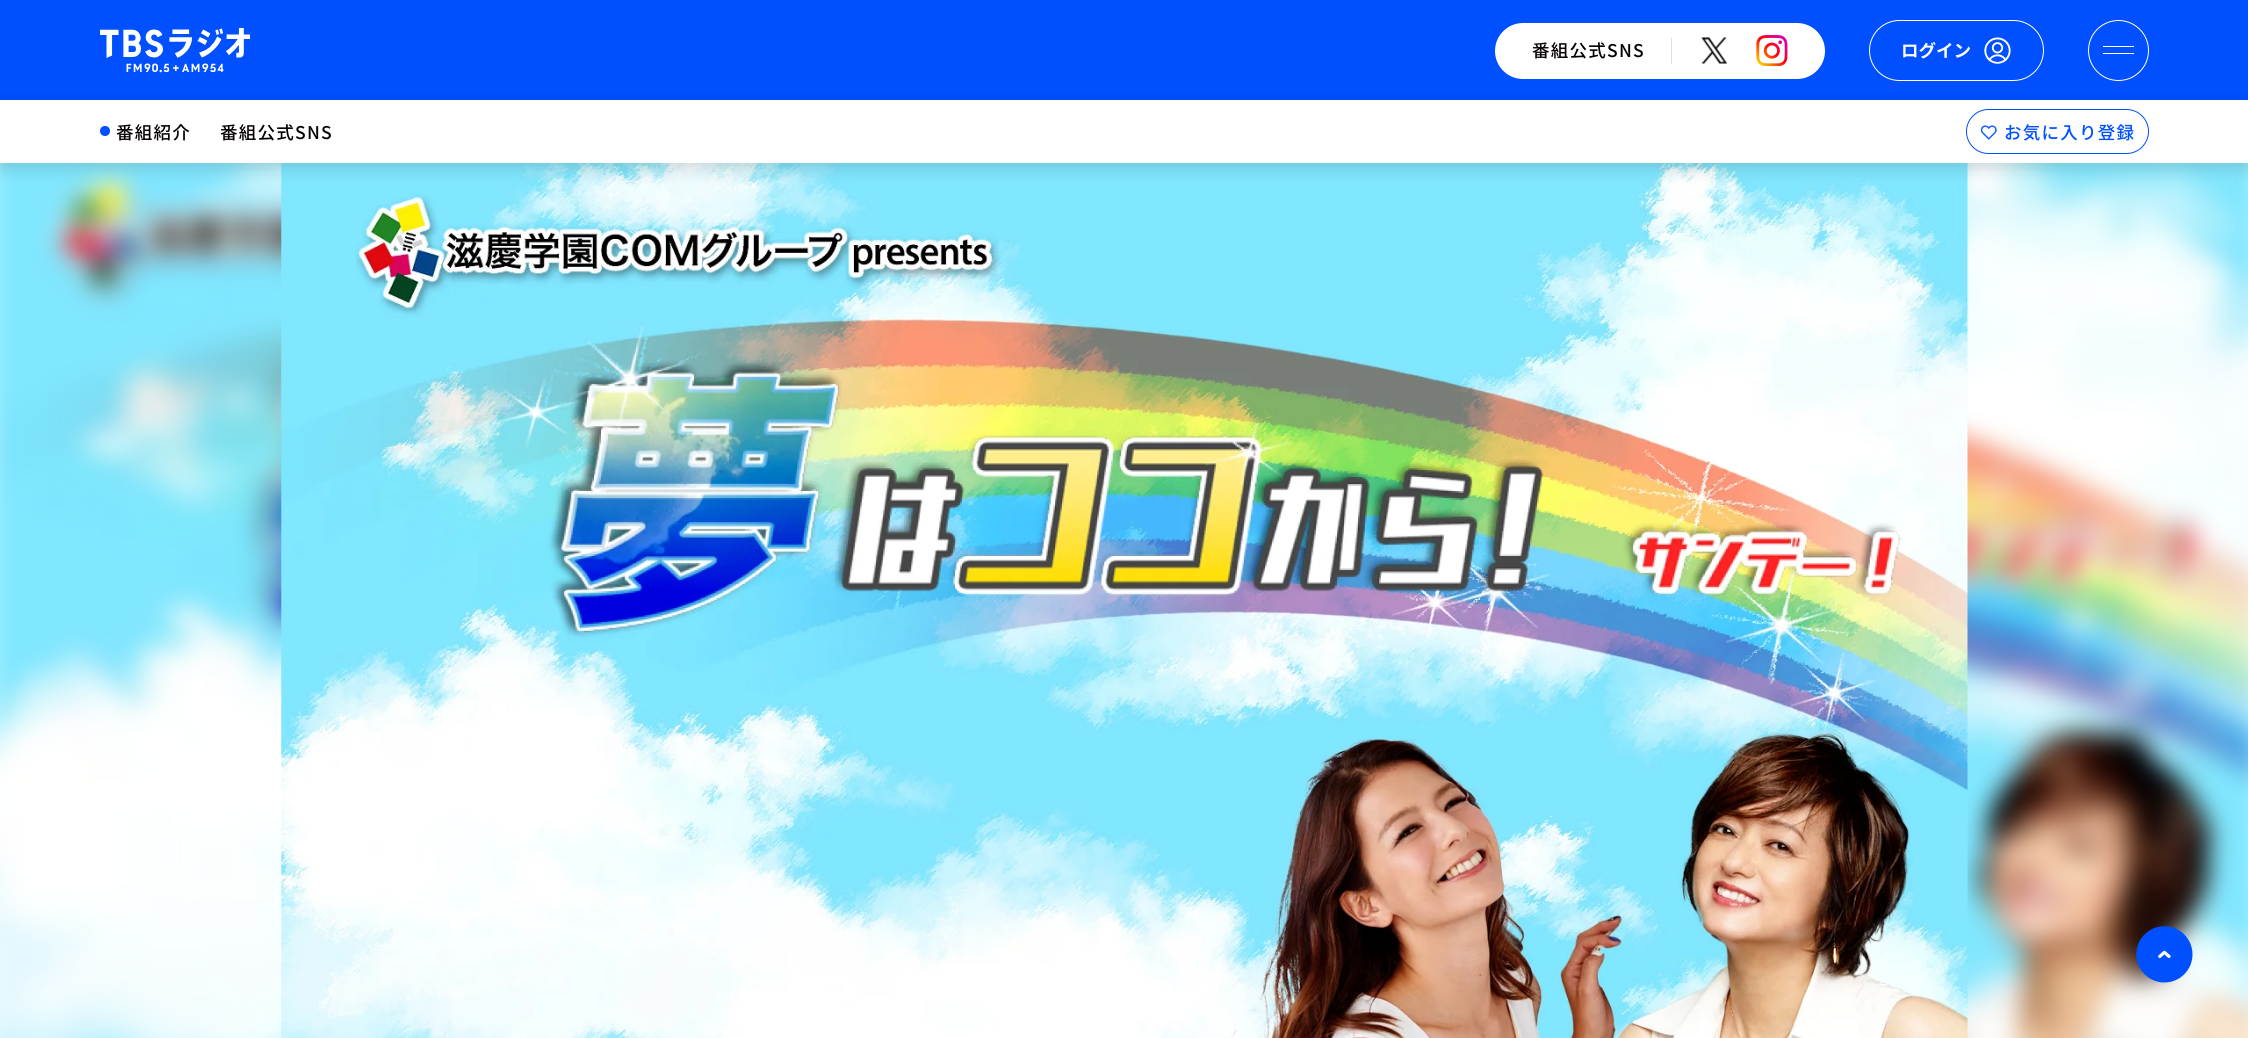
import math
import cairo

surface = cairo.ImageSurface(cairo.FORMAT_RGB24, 2248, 1038)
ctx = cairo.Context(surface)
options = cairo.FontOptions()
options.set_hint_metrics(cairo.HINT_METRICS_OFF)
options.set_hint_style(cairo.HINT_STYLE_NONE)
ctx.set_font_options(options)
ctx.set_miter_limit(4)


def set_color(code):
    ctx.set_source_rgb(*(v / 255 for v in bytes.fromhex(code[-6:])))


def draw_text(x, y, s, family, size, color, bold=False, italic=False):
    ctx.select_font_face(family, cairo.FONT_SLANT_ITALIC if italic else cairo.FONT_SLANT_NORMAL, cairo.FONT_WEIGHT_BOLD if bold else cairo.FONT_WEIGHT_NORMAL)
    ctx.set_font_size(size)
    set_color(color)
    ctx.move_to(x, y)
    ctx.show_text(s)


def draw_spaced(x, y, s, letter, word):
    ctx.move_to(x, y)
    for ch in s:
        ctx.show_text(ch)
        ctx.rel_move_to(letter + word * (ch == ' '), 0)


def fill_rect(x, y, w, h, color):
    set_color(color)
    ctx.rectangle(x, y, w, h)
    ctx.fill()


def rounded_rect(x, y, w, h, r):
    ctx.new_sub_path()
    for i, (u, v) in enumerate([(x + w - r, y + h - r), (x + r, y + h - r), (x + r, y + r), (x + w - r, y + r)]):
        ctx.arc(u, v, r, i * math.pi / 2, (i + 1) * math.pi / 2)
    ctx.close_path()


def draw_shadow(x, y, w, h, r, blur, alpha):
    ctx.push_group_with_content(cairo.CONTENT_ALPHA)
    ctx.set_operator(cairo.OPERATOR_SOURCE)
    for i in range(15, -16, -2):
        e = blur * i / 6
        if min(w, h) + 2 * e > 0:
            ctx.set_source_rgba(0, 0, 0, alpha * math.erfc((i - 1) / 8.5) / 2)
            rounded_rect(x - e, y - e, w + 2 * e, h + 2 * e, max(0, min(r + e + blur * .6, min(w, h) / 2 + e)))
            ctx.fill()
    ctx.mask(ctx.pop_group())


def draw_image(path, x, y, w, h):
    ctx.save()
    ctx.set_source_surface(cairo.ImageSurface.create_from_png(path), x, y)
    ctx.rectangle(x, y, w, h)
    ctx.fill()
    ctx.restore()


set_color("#ffffff")
ctx.paint()
fill_rect(0, 0, 2248, 100, "#0050ff")
draw_image("assets/img1.png", 100, 28, 150, 45)
draw_image("assets/img6.png", 0, 163, 282, 875)
draw_image("assets/img8.png", 1967, 163, 281, 875)
draw_image("assets/img7.png", 281, 163, 1687, 875)
set_color("#000000")
draw_shadow(0, 105, 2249, 63, 0, 9, 0.15)
set_color("#ffffff")
rounded_rect(1495, 23, 330, 56, 28)
ctx.fill()
fill_rect(1671, 38, 1, 26, "#dae0ed")
ctx.select_font_face("Noto Sans JP Medium")
ctx.set_font_size(17.5)
set_color("#050101")
draw_spaced(1532, 57, "番組公式SNS", 1.25, 0)
draw_image("assets/img2.png", 1701, 37, 26, 27)
draw_image("assets/img3.png", 1756, 35, 32, 31)
rounded_rect(1869.5, 20.5, 174, 60, 30)
set_color("#ffffff")
ctx.set_line_width(1)
ctx.stroke()
draw_text(1901, 57, "ログイン", "Noto Sans JP", 17.5, "#ffffff", bold=True)
draw_image("assets/img4.png", 1984, 37, 27, 27)
ctx.arc(2118.5, 50.5, 30, 0, 2 * math.pi)
ctx.stroke()
fill_rect(2103, 46, 31, 1, "#ffffff")
fill_rect(2103, 53, 31, 1, "#ffffff")
fill_rect(0, 100, 2248, 63, "#ffffff")
set_color("#0050ff")
ctx.arc(105, 131, 5, 0, 2 * math.pi)
ctx.fill()
ctx.select_font_face("Noto Sans JP Medium")
set_color("#050101")
draw_spaced(116, 139, "番組紹介", 1.25, 0)
draw_spaced(220, 139, "番組公式SNS", 1.25, 0)
rounded_rect(1966.5, 109.5, 182, 44, 22)
set_color("#0050ff")
ctx.stroke()
draw_image("assets/img5.png", 1980, 125, 17, 15)
draw_spaced(2004, 139, "お気に入り登録", 1.25, 0)
fill_rect(2158, 950, 13, 8, "#ffffff")
draw_image("assets/img9.png", 2136, 926, 57, 57)
surface.write_to_png("output.png")
